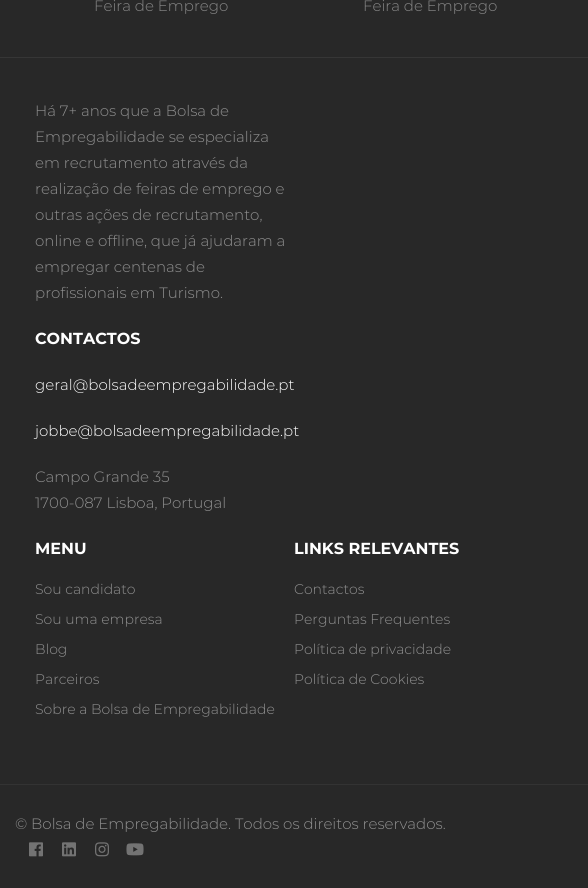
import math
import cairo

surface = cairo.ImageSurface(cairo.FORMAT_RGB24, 588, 888)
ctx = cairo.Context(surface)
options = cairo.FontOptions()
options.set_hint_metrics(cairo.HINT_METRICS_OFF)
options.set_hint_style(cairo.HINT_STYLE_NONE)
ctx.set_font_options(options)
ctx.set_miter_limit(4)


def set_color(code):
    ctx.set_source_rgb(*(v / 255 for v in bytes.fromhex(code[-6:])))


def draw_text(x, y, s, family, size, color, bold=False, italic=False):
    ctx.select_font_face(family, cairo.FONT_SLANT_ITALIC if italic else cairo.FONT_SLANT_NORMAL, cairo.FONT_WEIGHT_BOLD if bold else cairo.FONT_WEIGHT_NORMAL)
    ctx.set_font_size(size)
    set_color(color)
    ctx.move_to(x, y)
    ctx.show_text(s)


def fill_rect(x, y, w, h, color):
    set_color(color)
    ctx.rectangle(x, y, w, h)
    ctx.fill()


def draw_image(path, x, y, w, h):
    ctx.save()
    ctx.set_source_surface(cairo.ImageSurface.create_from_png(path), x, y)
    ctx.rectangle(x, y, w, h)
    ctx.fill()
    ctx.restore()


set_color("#282828")
ctx.paint()
fill_rect(0, 57, 588, 1, "#363636")
draw_text(94, 11, "Feira de Emprego", "Montserrat Light", 15, "#888888")
draw_text(363, 11, "Feira de Emprego", "Montserrat Light", 15, "#888888")
draw_text(35, 116, "Há 7+ anos que a Bolsa de", "Montserrat Light", 15, "#909090")
draw_text(35, 142, "Empregabilidade se especializa", "Montserrat Light", 15, "#909090")
draw_text(35, 168, "em recrutamento através da", "Montserrat Light", 15, "#909090")
draw_text(35, 194, "realização de feiras de emprego e", "Montserrat Light", 15, "#909090")
draw_text(35, 220, "outras ações de recrutamento,", "Montserrat Light", 15, "#909090")
draw_text(35, 246, "online e offline, que já ajudaram a", "Montserrat Light", 15, "#909090")
draw_text(35, 272, "empregar centenas de", "Montserrat Light", 15, "#909090")
draw_text(35, 298, "profissionais em Turismo.", "Montserrat Light", 15, "#909090")
draw_text(35, 344, "CONTACTOS", "Montserrat", 16, "#ffffff", bold=True)
draw_text(35, 390, "geral@bolsadeempregabilidade.pt", "Montserrat Light", 15, "#ffffff")
draw_text(35, 436, "jobbe@bolsadeempregabilidade.pt", "Montserrat Light", 15, "#ffffff")
draw_text(35, 482, "Campo Grande 35", "Montserrat Light", 15, "#909090")
draw_text(35, 508, "1700-087 Lisboa, Portugal", "Montserrat Light", 15, "#909090")
draw_text(35, 554, "MENU", "Montserrat", 16, "#ffffff", bold=True)
draw_text(35, 594, "Sou candidato", "Montserrat Light", 14, "#909090")
draw_text(35, 624, "Sou uma empresa", "Montserrat Light", 14, "#909090")
draw_text(35, 654, "Blog", "Montserrat Light", 14, "#909090")
draw_text(35, 684, "Parceiros", "Montserrat Light", 14, "#909090")
draw_text(35, 714, "Sobre a Bolsa de Empregabilidade", "Montserrat Light", 14, "#909090")
draw_text(294, 554, "LINKS RELEVANTES", "Montserrat", 16, "#ffffff", bold=True)
draw_text(294, 594, "Contactos", "Montserrat Light", 14, "#909090")
draw_text(294, 624, "Perguntas Frequentes", "Montserrat Light", 14, "#909090")
draw_text(294, 654, "Política de privacidade", "Montserrat Light", 14, "#909090")
draw_text(294, 684, "Política de Cookies", "Montserrat Light", 14, "#909090")
fill_rect(0, 784, 588, 1, "#333333")
draw_text(15, 829, "© Bolsa de Empregabilidade. Todos os direitos reservados.", "Montserrat Light", 15, "#909090")
draw_image("assets/img1.png", 29, 842, 14, 15)
draw_image("assets/img2.png", 62, 842, 14, 15)
draw_image("assets/img3.png", 95, 842, 14, 15)
draw_image("assets/img4.png", 126, 843, 18, 13)
surface.write_to_png("output.png")
